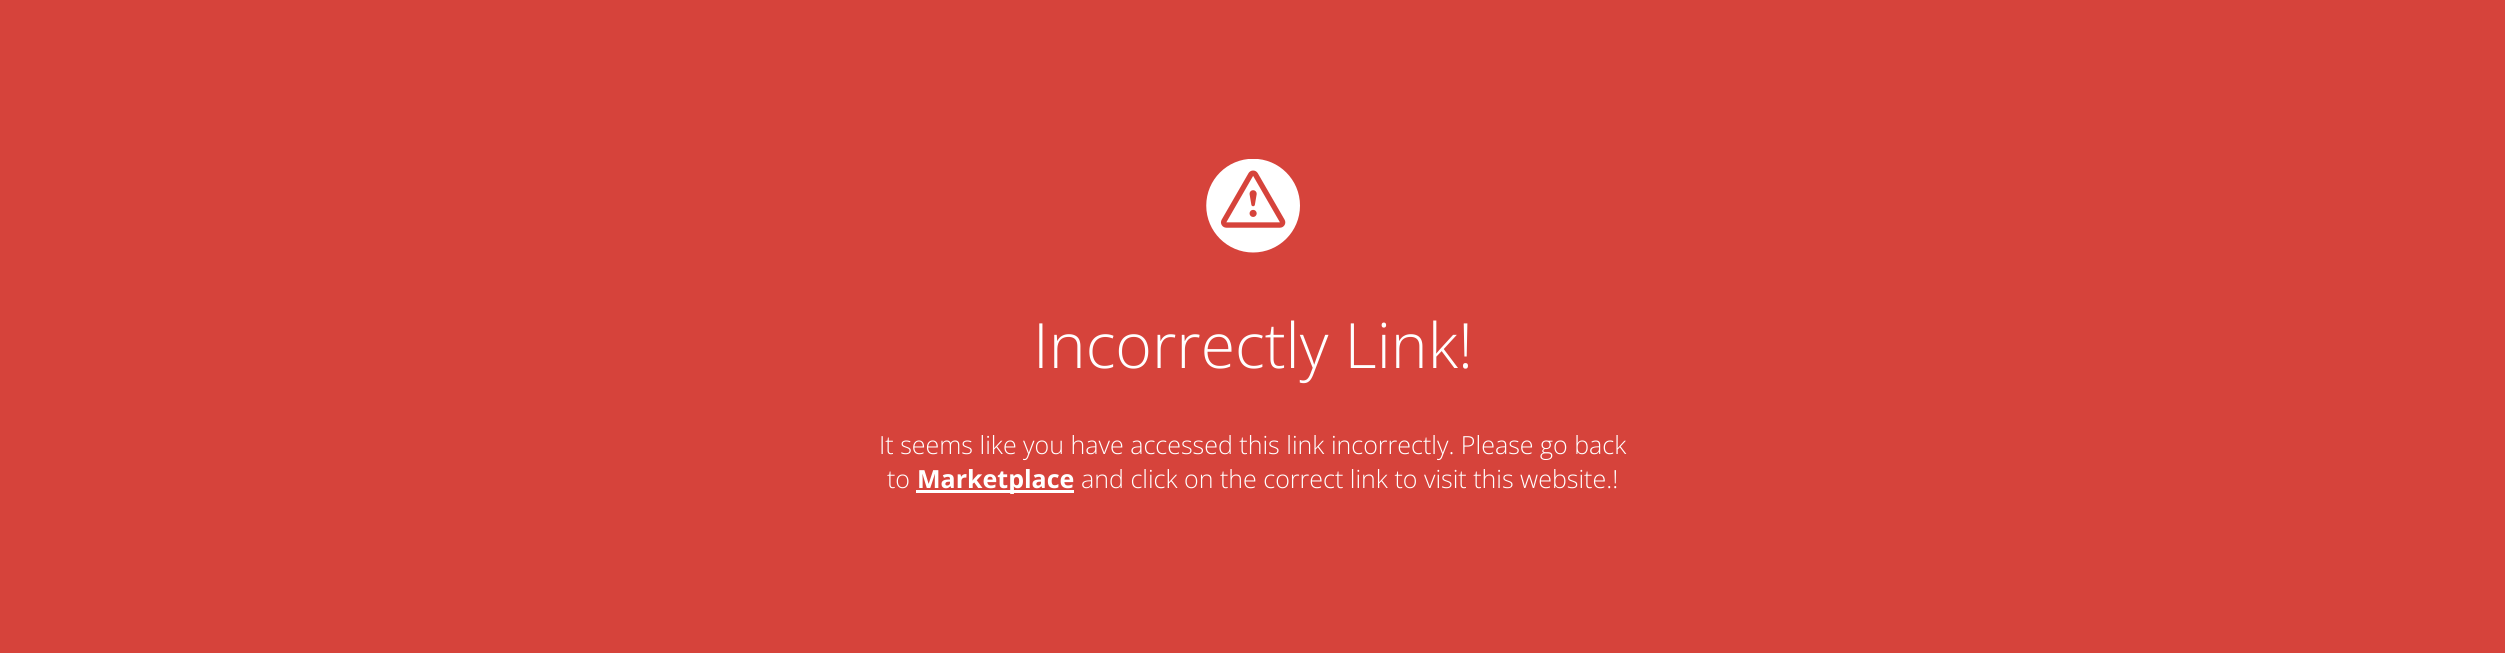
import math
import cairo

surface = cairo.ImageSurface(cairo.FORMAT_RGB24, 2505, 653)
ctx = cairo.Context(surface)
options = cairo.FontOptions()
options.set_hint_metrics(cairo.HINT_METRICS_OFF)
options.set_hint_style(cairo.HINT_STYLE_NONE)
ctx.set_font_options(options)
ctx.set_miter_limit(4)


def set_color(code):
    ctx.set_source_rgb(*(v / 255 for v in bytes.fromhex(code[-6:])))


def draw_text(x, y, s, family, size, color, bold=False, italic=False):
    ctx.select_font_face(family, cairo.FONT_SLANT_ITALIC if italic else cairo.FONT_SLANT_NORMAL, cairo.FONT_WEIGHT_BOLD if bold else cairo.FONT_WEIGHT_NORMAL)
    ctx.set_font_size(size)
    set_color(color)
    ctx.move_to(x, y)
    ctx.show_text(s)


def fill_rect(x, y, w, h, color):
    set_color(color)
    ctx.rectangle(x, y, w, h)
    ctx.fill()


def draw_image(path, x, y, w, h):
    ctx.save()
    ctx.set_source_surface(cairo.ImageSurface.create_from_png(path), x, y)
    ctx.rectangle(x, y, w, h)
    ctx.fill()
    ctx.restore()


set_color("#d6433b")
ctx.paint()
draw_image("assets/img1.png", 1206, 159, 94, 94)
draw_text(1033, 368, "Incorrectly Link!", "Open Sans Light", 62.5, "#ffffff")
draw_text(879, 454, "It seems like you have accessed this link incorrectly. Please go back", "Open Sans Light", 25, "#ffffff")
draw_text(887, 488, "to", "Open Sans Light", 25, "#ffffff")
fill_rect(916, 490, 158, 3, "#ffffff")
draw_text(917, 488, "Marketplace", "Open Sans", 25, "#ffffff", bold=True)
draw_text(1081, 488, "and click on the correct link to visit this website.!", "Open Sans Light", 25, "#ffffff")
surface.write_to_png("output.png")
